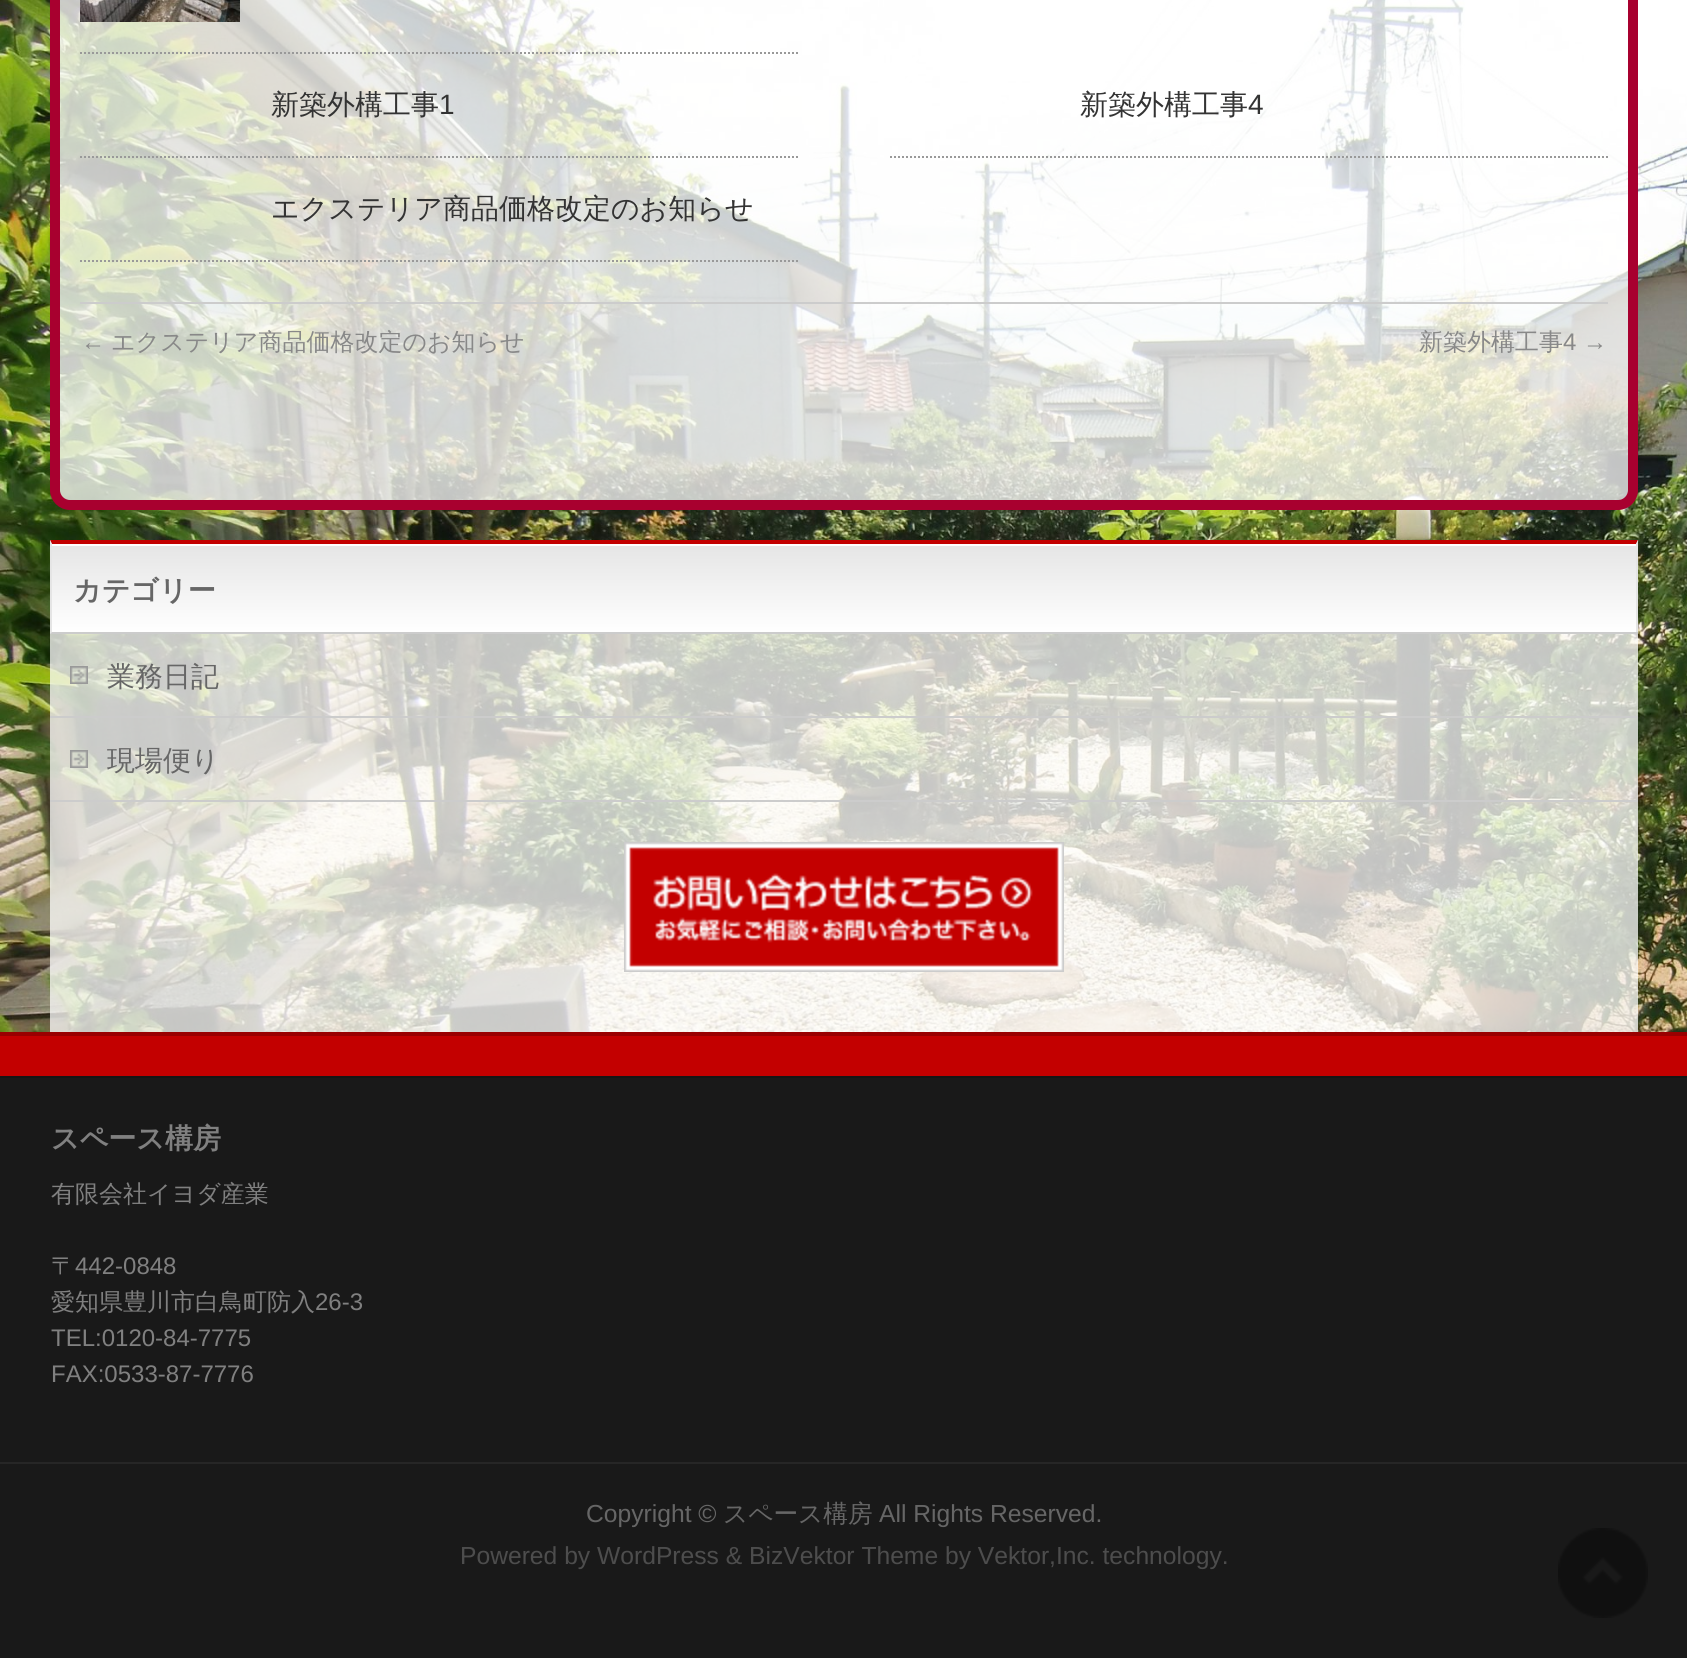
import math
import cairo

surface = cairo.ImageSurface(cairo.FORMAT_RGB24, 1687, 1658)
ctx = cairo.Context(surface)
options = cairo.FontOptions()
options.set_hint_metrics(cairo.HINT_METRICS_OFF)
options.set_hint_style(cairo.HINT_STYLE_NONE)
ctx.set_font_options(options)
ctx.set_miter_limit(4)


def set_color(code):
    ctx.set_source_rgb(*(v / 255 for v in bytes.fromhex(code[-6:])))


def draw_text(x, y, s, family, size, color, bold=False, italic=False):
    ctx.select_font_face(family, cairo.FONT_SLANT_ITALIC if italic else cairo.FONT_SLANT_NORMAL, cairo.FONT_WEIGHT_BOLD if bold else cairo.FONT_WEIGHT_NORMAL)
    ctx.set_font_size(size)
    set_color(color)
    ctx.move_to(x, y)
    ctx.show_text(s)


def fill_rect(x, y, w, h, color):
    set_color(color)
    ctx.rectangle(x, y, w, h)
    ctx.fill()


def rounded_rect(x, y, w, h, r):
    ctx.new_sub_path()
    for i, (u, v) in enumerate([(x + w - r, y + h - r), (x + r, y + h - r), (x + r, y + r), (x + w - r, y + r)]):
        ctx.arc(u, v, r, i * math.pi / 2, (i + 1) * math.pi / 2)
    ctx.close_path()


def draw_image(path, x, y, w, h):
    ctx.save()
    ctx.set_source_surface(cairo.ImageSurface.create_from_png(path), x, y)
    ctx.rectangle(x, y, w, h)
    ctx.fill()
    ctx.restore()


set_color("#ffffff")
ctx.paint()
draw_image("assets/img1.png", 0, 0, 1687, 1032)
ctx.set_source_rgba(1, 1, 1, 0.75)
rounded_rect(55, -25, 1578, 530, 15)
ctx.fill_preserve()
set_color("#a8002f")
ctx.set_line_width(10)
ctx.stroke()
ctx.new_path()
ctx.move_to(80, 53)
ctx.line_to(798, 53)
set_color("#999999")
ctx.set_line_width(2)
ctx.set_dash([2, 2])
ctx.stroke()
draw_image("assets/img2.png", 80, 0, 160, 22)
ctx.new_path()
ctx.move_to(80, 157)
ctx.line_to(798, 157)
ctx.stroke()
draw_text(271, 114, "新築外構工事", "WenQuanYi Zen Hei Medium", 28, "#333333")
draw_text(439, 114, "1", "Liberation Sans", 28, "#333333")
ctx.new_path()
ctx.move_to(890, 157)
ctx.line_to(1608, 157)
set_color("#999999")
ctx.stroke()
draw_text(1080, 114, "新築外構工事", "WenQuanYi Zen Hei Medium", 28, "#333333")
draw_text(1248, 114, "4", "Liberation Sans", 28, "#333333")
ctx.new_path()
ctx.move_to(80, 261)
ctx.line_to(798, 261)
set_color("#999999")
ctx.stroke()
draw_text(271, 218, "エクステリア商品価格改定のお知らせ", "WenQuanYi Zen Hei Medium", 28, "#333333")
fill_rect(80, 302, 1528, 2, "#cccccc")
draw_text(81, 350, "←", "Liberation Sans", 24, "#888888")
draw_text(111, 350, "エクステリア商品価格改定のお知らせ", "WenQuanYi Zen Hei Medium", 24, "#888888")
draw_text(1419, 350, "新築外構工事", "WenQuanYi Zen Hei Medium", 24, "#888888")
draw_text(1563, 350, "4 →", "Liberation Sans", 24, "#888888")
ctx.set_source_rgba(1, 1, 1, 0.75)
ctx.rectangle(50, 540, 1588, 492)
ctx.fill()
gradient = cairo.LinearGradient(52, 544, 52, 632)
gradient.add_color_stop_rgba(0, 0.898, 0.898, 0.898, 1)
gradient.add_color_stop_rgba(1, 1, 1, 1, 1)
ctx.set_source(gradient)
ctx.rectangle(52, 546, 1584, 86)
ctx.fill()
fill_rect(52, 544, 1584, 2, "#ffffff")
set_color("#c30000")
ctx.new_path()
ctx.move_to(50, 540)
ctx.line_to(1638, 540)
ctx.line_to(1636, 544)
ctx.line_to(52, 544)
ctx.close_path()
ctx.fill()
set_color("#e5e5e5")
ctx.new_path()
ctx.move_to(1638, 540)
ctx.line_to(1638, 634)
ctx.line_to(1636, 632)
ctx.line_to(1636, 544)
ctx.close_path()
ctx.fill()
fill_rect(50, 632, 1588, 2, "#cccccc")
set_color("#e5e5e5")
ctx.new_path()
ctx.move_to(50, 634)
ctx.line_to(50, 540)
ctx.line_to(52, 544)
ctx.line_to(52, 632)
ctx.close_path()
ctx.fill()
draw_text(73, 600, "カテゴリー", "WenQuanYi Zen Hei", 28, "#666666", bold=True)
fill_rect(50, 716, 1588, 2, "#cccccc")
draw_image("assets/img3.png", 70, 666, 18, 18)
draw_text(107, 686, "業務日記", "WenQuanYi Zen Hei Medium", 28, "#666666")
fill_rect(50, 800, 1588, 2, "#cccccc")
draw_image("assets/img4.png", 70, 750, 18, 18)
draw_text(107, 770, "現場便り", "WenQuanYi Zen Hei Medium", 28, "#666666")
fill_rect(629, 847, 430, 120, "#c30000")
draw_image("assets/img5.png", 624, 842, 440, 130)
fill_rect(0, 1036, 1687, 40, "#c30000")
fill_rect(0, 1032, 1687, 4, "#990000")
fill_rect(0, 1078, 1687, 384, "#191919")
fill_rect(0, 1076, 1687, 2, "#151515")
draw_text(51, 1148, "スペース構房", "WenQuanYi Zen Hei", 28, "#808080", bold=True)
draw_text(51, 1202, "有限会社イヨダ産業", "WenQuanYi Zen Hei Medium", 24, "#808080")
draw_text(51, 1274, "〒", "WenQuanYi Zen Hei Medium", 24, "#808080")
draw_text(75, 1274, "442-0848", "Liberation Sans", 24, "#808080")
draw_text(51, 1310, "愛知県豊川市白鳥町防入", "WenQuanYi Zen Hei Medium", 24, "#808080")
draw_text(315, 1310, "26-3", "Liberation Sans", 24, "#808080")
draw_text(51, 1346, "TEL:0120-84-7775", "Liberation Sans", 24, "#808080")
draw_text(51, 1382, "FAX:0533-87-7776", "Liberation Sans", 24, "#808080")
fill_rect(0, 1464, 1687, 194, "#191919")
fill_rect(0, 1462, 1687, 2, "#262626")
draw_text(586, 1522, "Copyright ©", "Liberation Sans", 24.65, "#666666")
draw_text(723, 1522, "スペース構房", "WenQuanYi Zen Hei Medium", 24.65, "#666666")
draw_text(879, 1522, "All Rights Reserved.", "Liberation Sans", 24.65, "#666666")
draw_text(460, 1564, "Powered by WordPress & BizVektor Theme by Vektor,Inc. technology.", "Liberation Sans", 24.65, "#4d4d4d")
draw_image("assets/img6.png", 1558, 1528, 90, 90)
surface.write_to_png("output.png")
